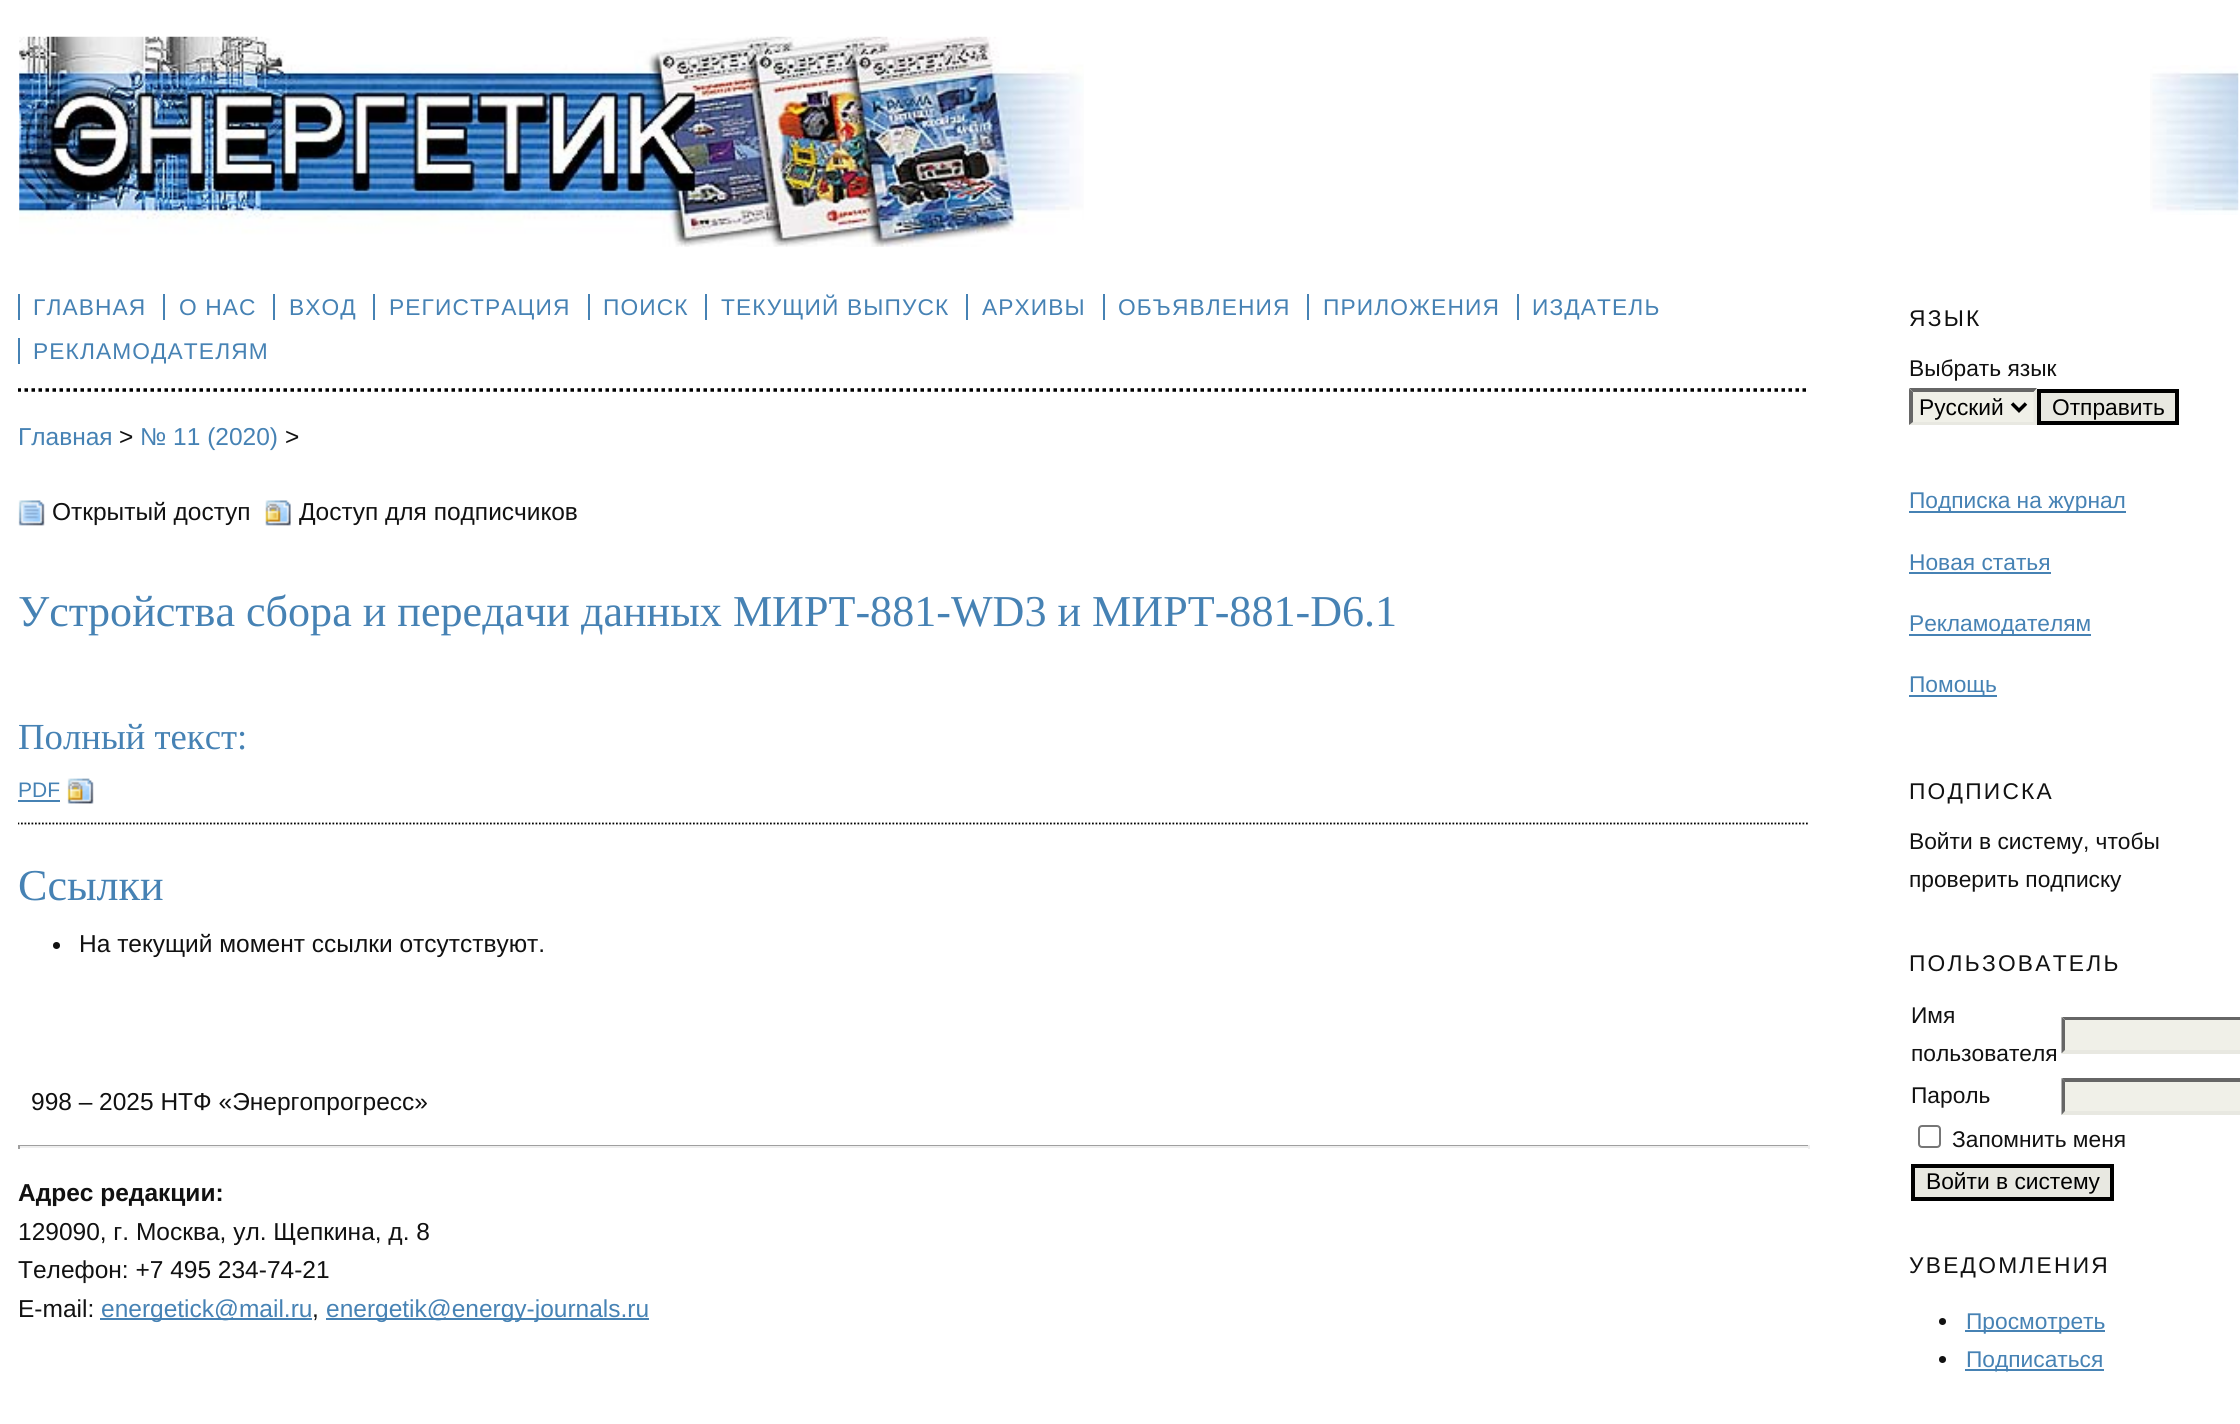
import math
import cairo

surface = cairo.ImageSurface(cairo.FORMAT_RGB24, 2240, 1424)
ctx = cairo.Context(surface)
options = cairo.FontOptions()
options.set_hint_metrics(cairo.HINT_METRICS_OFF)
options.set_hint_style(cairo.HINT_STYLE_NONE)
ctx.set_font_options(options)
ctx.set_miter_limit(4)


def set_color(code):
    ctx.set_source_rgb(*(v / 255 for v in bytes.fromhex(code[-6:])))


def draw_text(x, y, s, family, size, color, bold=False, italic=False):
    ctx.select_font_face(family, cairo.FONT_SLANT_ITALIC if italic else cairo.FONT_SLANT_NORMAL, cairo.FONT_WEIGHT_BOLD if bold else cairo.FONT_WEIGHT_NORMAL)
    ctx.set_font_size(size)
    set_color(color)
    ctx.move_to(x, y)
    ctx.show_text(s)


def draw_spaced(x, y, s, letter, word):
    ctx.move_to(x, y)
    for ch in s:
        ctx.show_text(ch)
        ctx.rel_move_to(letter + word * (ch == ' '), 0)


def fill_rect(x, y, w, h, color):
    set_color(color)
    ctx.rectangle(x, y, w, h)
    ctx.fill()


def rounded_rect(x, y, w, h, r):
    ctx.new_sub_path()
    for i, (u, v) in enumerate([(x + w - r, y + h - r), (x + r, y + h - r), (x + r, y + r), (x + w - r, y + r)]):
        ctx.arc(u, v, r, i * math.pi / 2, (i + 1) * math.pi / 2)
    ctx.close_path()


def draw_image(path, x, y, w, h):
    ctx.save()
    ctx.set_source_surface(cairo.ImageSurface.create_from_png(path), x, y)
    ctx.rectangle(x, y, w, h)
    ctx.fill()
    ctx.restore()


set_color("#ffffff")
ctx.paint()
draw_image("assets/img1.png", 19, 36, 1065, 211)
draw_image("assets/img2.png", 2150, 65, 89, 150)
ctx.save()
ctx.rectangle(18, 266, 1792, 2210)
ctx.clip()
ctx.new_path()
ctx.move_to(17.5, 390)
ctx.line_to(1809.5, 390)
set_color("#000000")
ctx.set_line_width(3.5)
ctx.set_dash([3.5, 3.5])
ctx.stroke()
ctx.restore()
ctx.select_font_face("Liberation Sans")
ctx.set_font_size(22.75)
set_color("#4682b4")
draw_spaced(33, 315, "ГЛАВНАЯ", 1.1, 0)
fill_rect(18, 294, 2, 26, "#4682b4")
draw_spaced(179, 315, "О НАС", 1.1, 0)
fill_rect(163, 294, 2, 26, "#4682b4")
draw_spaced(289, 315, "ВХОД", 1.1, 0)
fill_rect(273, 294, 2, 26, "#4682b4")
draw_spaced(389, 315, "РЕГИСТРАЦИЯ", 1.1, 0)
fill_rect(373, 294, 2, 26, "#4682b4")
draw_spaced(603, 315, "ПОИСК", 1.1, 0)
fill_rect(588, 294, 2, 26, "#4682b4")
draw_spaced(721, 315, "ТЕКУЩИЙ ВЫПУСК", 1.1, 0)
fill_rect(705, 294, 2, 26, "#4682b4")
draw_spaced(982, 315, "АРХИВЫ", 1.1, 0)
fill_rect(966, 294, 2, 26, "#4682b4")
draw_spaced(1118, 315, "ОБЪЯВЛЕНИЯ", 1.1, 0)
fill_rect(1103, 294, 2, 26, "#4682b4")
draw_spaced(1323, 315, "ПРИЛОЖЕНИЯ", 1.1, 0)
fill_rect(1307, 294, 2, 26, "#4682b4")
draw_spaced(1532, 315, "ИЗДАТЕЛЬ", 1.1, 0)
fill_rect(1517, 294, 2, 26, "#4682b4")
draw_spaced(33, 359, "РЕКЛАМОДАТЕЛЯМ", 1.1, 0)
fill_rect(18, 338, 2, 26, "#4682b4")
draw_text(18, 445, "Главная", "Liberation Sans", 24.5, "#4682b4")
draw_text(119, 445, ">", "Liberation Sans", 24.5, "#111111")
draw_text(140, 445, "№ 11 (2020)", "Liberation Sans", 24.5, "#4682b4")
draw_text(285, 445, ">", "Liberation Sans", 24.5, "#111111")
draw_image("assets/img3.png", 18, 500, 27, 26)
draw_text(52, 520, "Открытый доступ", "Liberation Sans", 24.5, "#111111")
draw_image("assets/img4.png", 265, 500, 26, 26)
draw_text(299, 520, "Доступ для подписчиков", "Liberation Sans", 24.5, "#111111")
draw_text(18, 626, "Устройства сбора и передачи данных МИРТ-881-WD3 и МИРТ-881-D6.1", "Liberation Serif", 44.1, "#4682b4")
draw_text(18, 749, "Полный текст:", "Liberation Serif", 36.75, "#4682b4")
draw_text(18, 797, "PDF", "Liberation Sans", 21, "#4682b4")
fill_rect(18, 800, 42, 2, "#4682b4")
draw_image("assets/img5.png", 67, 778, 27, 26)
ctx.save()
ctx.rectangle(18, 266, 1792, 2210)
ctx.clip()
ctx.new_path()
ctx.move_to(17.5, 823.5)
ctx.line_to(1809.5, 823.5)
set_color("#000000")
ctx.set_line_width(1.8)
ctx.set_dash([1.75, 1.75])
ctx.stroke()
ctx.restore()
draw_text(18, 900, "Ссылки", "Liberation Serif", 44.1, "#4682b4")
set_color("#111111")
ctx.new_path()
ctx.arc(56.5, 945.5, 3.5, 0, 2 * math.pi)
ctx.fill()
draw_text(79, 952, "На текущий момент ссылки отсутствуют.", "Liberation Sans", 24.5, "#111111")
draw_text(31, 1110, "998 – 2025 НТФ «Энергопрогресс»", "Liberation Sans", 24.5, "#111111")
fill_rect(18, 1145, 1792, 1, "#9f9f9f")
fill_rect(1808, 1145, 2, 4, "#eeeeee")
fill_rect(18, 1146, 1792, 2, "#eeeeee")
fill_rect(18, 1145, 2, 4, "#9f9f9f")
draw_text(18, 1201, "Адрес редакции:", "Liberation Sans", 24.5, "#111111", bold=True)
draw_text(18, 1240, "129090, г. Москва, ул. Щепкина, д. 8", "Liberation Sans", 24.5, "#111111")
draw_text(18, 1278, "Телефон: +7 495 234-74-21", "Liberation Sans", 24.5, "#111111")
draw_text(18, 1317, "E-mail:", "Liberation Sans", 24.5, "#111111")
fill_rect(100, 1318, 212, 2, "#4682b4")
draw_text(101, 1317, "energetick@mail.ru", "Liberation Sans", 24.5, "#4682b4")
draw_text(312, 1317, ",", "Liberation Sans", 24.5, "#111111")
fill_rect(326, 1318, 323, 2, "#4682b4")
draw_text(326, 1317, "energetik@energy-journals.ru", "Liberation Sans", 24.5, "#4682b4")
ctx.set_font_size(22.75)
set_color("#111111")
draw_spaced(1909, 326, "ЯЗЫК", 2.25, 0)
draw_text(1909, 376, "Выбрать язык", "Liberation Sans", 22.75, "#111111")
fill_rect(1909, 389, 128, 36, "#f0f0e8")
set_color("#666666")
ctx.new_path()
ctx.move_to(1909, 388)
ctx.line_to(2037, 388)
ctx.line_to(2034, 392)
ctx.line_to(1913, 392)
ctx.close_path()
ctx.fill()
set_color("#e8e8e1")
ctx.new_path()
ctx.move_to(2037, 388.5)
ctx.line_to(2037, 425)
ctx.line_to(2033.5, 422)
ctx.line_to(2033.5, 392)
ctx.close_path()
ctx.fill()
ctx.new_path()
ctx.move_to(2037, 425)
ctx.line_to(1909, 425)
ctx.line_to(1913, 422)
ctx.line_to(2034, 422)
ctx.close_path()
ctx.fill()
set_color("#666666")
ctx.new_path()
ctx.move_to(1909, 425)
ctx.line_to(1909, 388.5)
ctx.line_to(1913, 392)
ctx.line_to(1913, 422)
ctx.close_path()
ctx.fill()
ctx.new_path()
ctx.move_to(2012, 403.5)
ctx.line_to(2019, 410.5)
ctx.line_to(2026, 403.5)
set_color("#000000")
ctx.set_line_width(3.5)
ctx.stroke()
draw_text(1919, 415, "Русский", "Liberation Sans", 22.75, "#000000")
set_color("#e8e8e1")
ctx.rectangle(2039, 391, 138, 32)
ctx.fill_preserve()
set_color("#000000")
ctx.set_line_width(4)
ctx.stroke()
draw_text(2052, 415, "Отправить", "Liberation Sans", 22.75, "#000000")
fill_rect(1909, 511, 217, 2, "#4682b4")
draw_text(1909, 508, "Подписка на журнал", "Liberation Sans", 22.75, "#4682b4")
draw_text(1909, 570, "Новая статья", "Liberation Sans", 22.75, "#4682b4")
fill_rect(1909, 572, 142, 2, "#4682b4")
fill_rect(1909, 634, 182, 2, "#4682b4")
draw_text(1909, 631, "Рекламодателям", "Liberation Sans", 22.75, "#4682b4")
fill_rect(1909, 695, 88, 2, "#4682b4")
draw_text(1909, 692, "Помощь", "Liberation Sans", 22.75, "#4682b4")
set_color("#111111")
draw_spaced(1909, 799, "ПОДПИСКА", 2.25, 0)
draw_text(1909, 849, "Войти в систему, чтобы", "Liberation Sans", 22.75, "#111111")
draw_text(1909, 887, "проверить подписку", "Liberation Sans", 22.75, "#111111")
draw_spaced(1909, 971, "ПОЛЬЗОВАТЕЛЬ", 2.25, 0)
draw_text(1911, 1023, "Имя", "Liberation Sans", 22.75, "#111111")
draw_text(1911, 1061, "пользователя", "Liberation Sans", 22.75, "#111111")
fill_rect(2062, 1017, 178, 37, "#f0f0e8")
set_color("#666666")
ctx.new_path()
ctx.move_to(2062, 1017)
ctx.line_to(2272, 1017)
ctx.line_to(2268, 1020)
ctx.line_to(2065, 1020)
ctx.close_path()
ctx.fill()
set_color("#e8e8e1")
ctx.new_path()
ctx.move_to(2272, 1054)
ctx.line_to(2062, 1054)
ctx.line_to(2065, 1050)
ctx.line_to(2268, 1050)
ctx.close_path()
ctx.fill()
set_color("#666666")
ctx.new_path()
ctx.move_to(2061.5, 1053.5)
ctx.line_to(2061.5, 1017)
ctx.line_to(2065, 1020)
ctx.line_to(2065, 1050)
ctx.close_path()
ctx.fill()
draw_text(1911, 1103, "Пароль", "Liberation Sans", 22.75, "#111111")
fill_rect(2062, 1078, 178, 37, "#f0f0e8")
set_color("#666666")
ctx.new_path()
ctx.move_to(2062, 1078)
ctx.line_to(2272, 1078)
ctx.line_to(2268, 1082)
ctx.line_to(2065, 1082)
ctx.close_path()
ctx.fill()
set_color("#e8e8e1")
ctx.new_path()
ctx.move_to(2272, 1115)
ctx.line_to(2062, 1115)
ctx.line_to(2065, 1111)
ctx.line_to(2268, 1111)
ctx.close_path()
ctx.fill()
set_color("#666666")
ctx.new_path()
ctx.move_to(2061.5, 1115)
ctx.line_to(2061.5, 1078)
ctx.line_to(2065, 1081.5)
ctx.line_to(2065, 1111)
ctx.close_path()
ctx.fill()
rounded_rect(1919, 1126, 21, 21, 3)
set_color("#767676")
ctx.set_line_width(2)
ctx.stroke()
draw_text(1952, 1147, "Запомнить меня", "Liberation Sans", 22.75, "#111111")
set_color("#e8e8e1")
ctx.rectangle(1913, 1166, 199, 33)
ctx.fill_preserve()
set_color("#000000")
ctx.set_line_width(4)
ctx.stroke()
draw_text(1926, 1189, "Войти в систему", "Liberation Sans", 22.75, "#000000")
set_color("#111111")
draw_spaced(1909, 1273, "УВЕДОМЛЕНИЯ", 2.25, 0)
ctx.new_path()
ctx.arc(1942.5, 1321.5, 3.5, 0, 2 * math.pi)
ctx.fill()
fill_rect(1965, 1330, 140, 2, "#4682b4")
draw_text(1966, 1329, "Просмотреть", "Liberation Sans", 22.75, "#4682b4")
set_color("#111111")
ctx.new_path()
ctx.arc(1942.5, 1359.5, 3.5, 0, 2 * math.pi)
ctx.fill()
fill_rect(1965, 1369, 139, 2, "#4682b4")
draw_text(1966, 1367, "Подписаться", "Liberation Sans", 22.75, "#4682b4")
surface.write_to_png("output.png")
